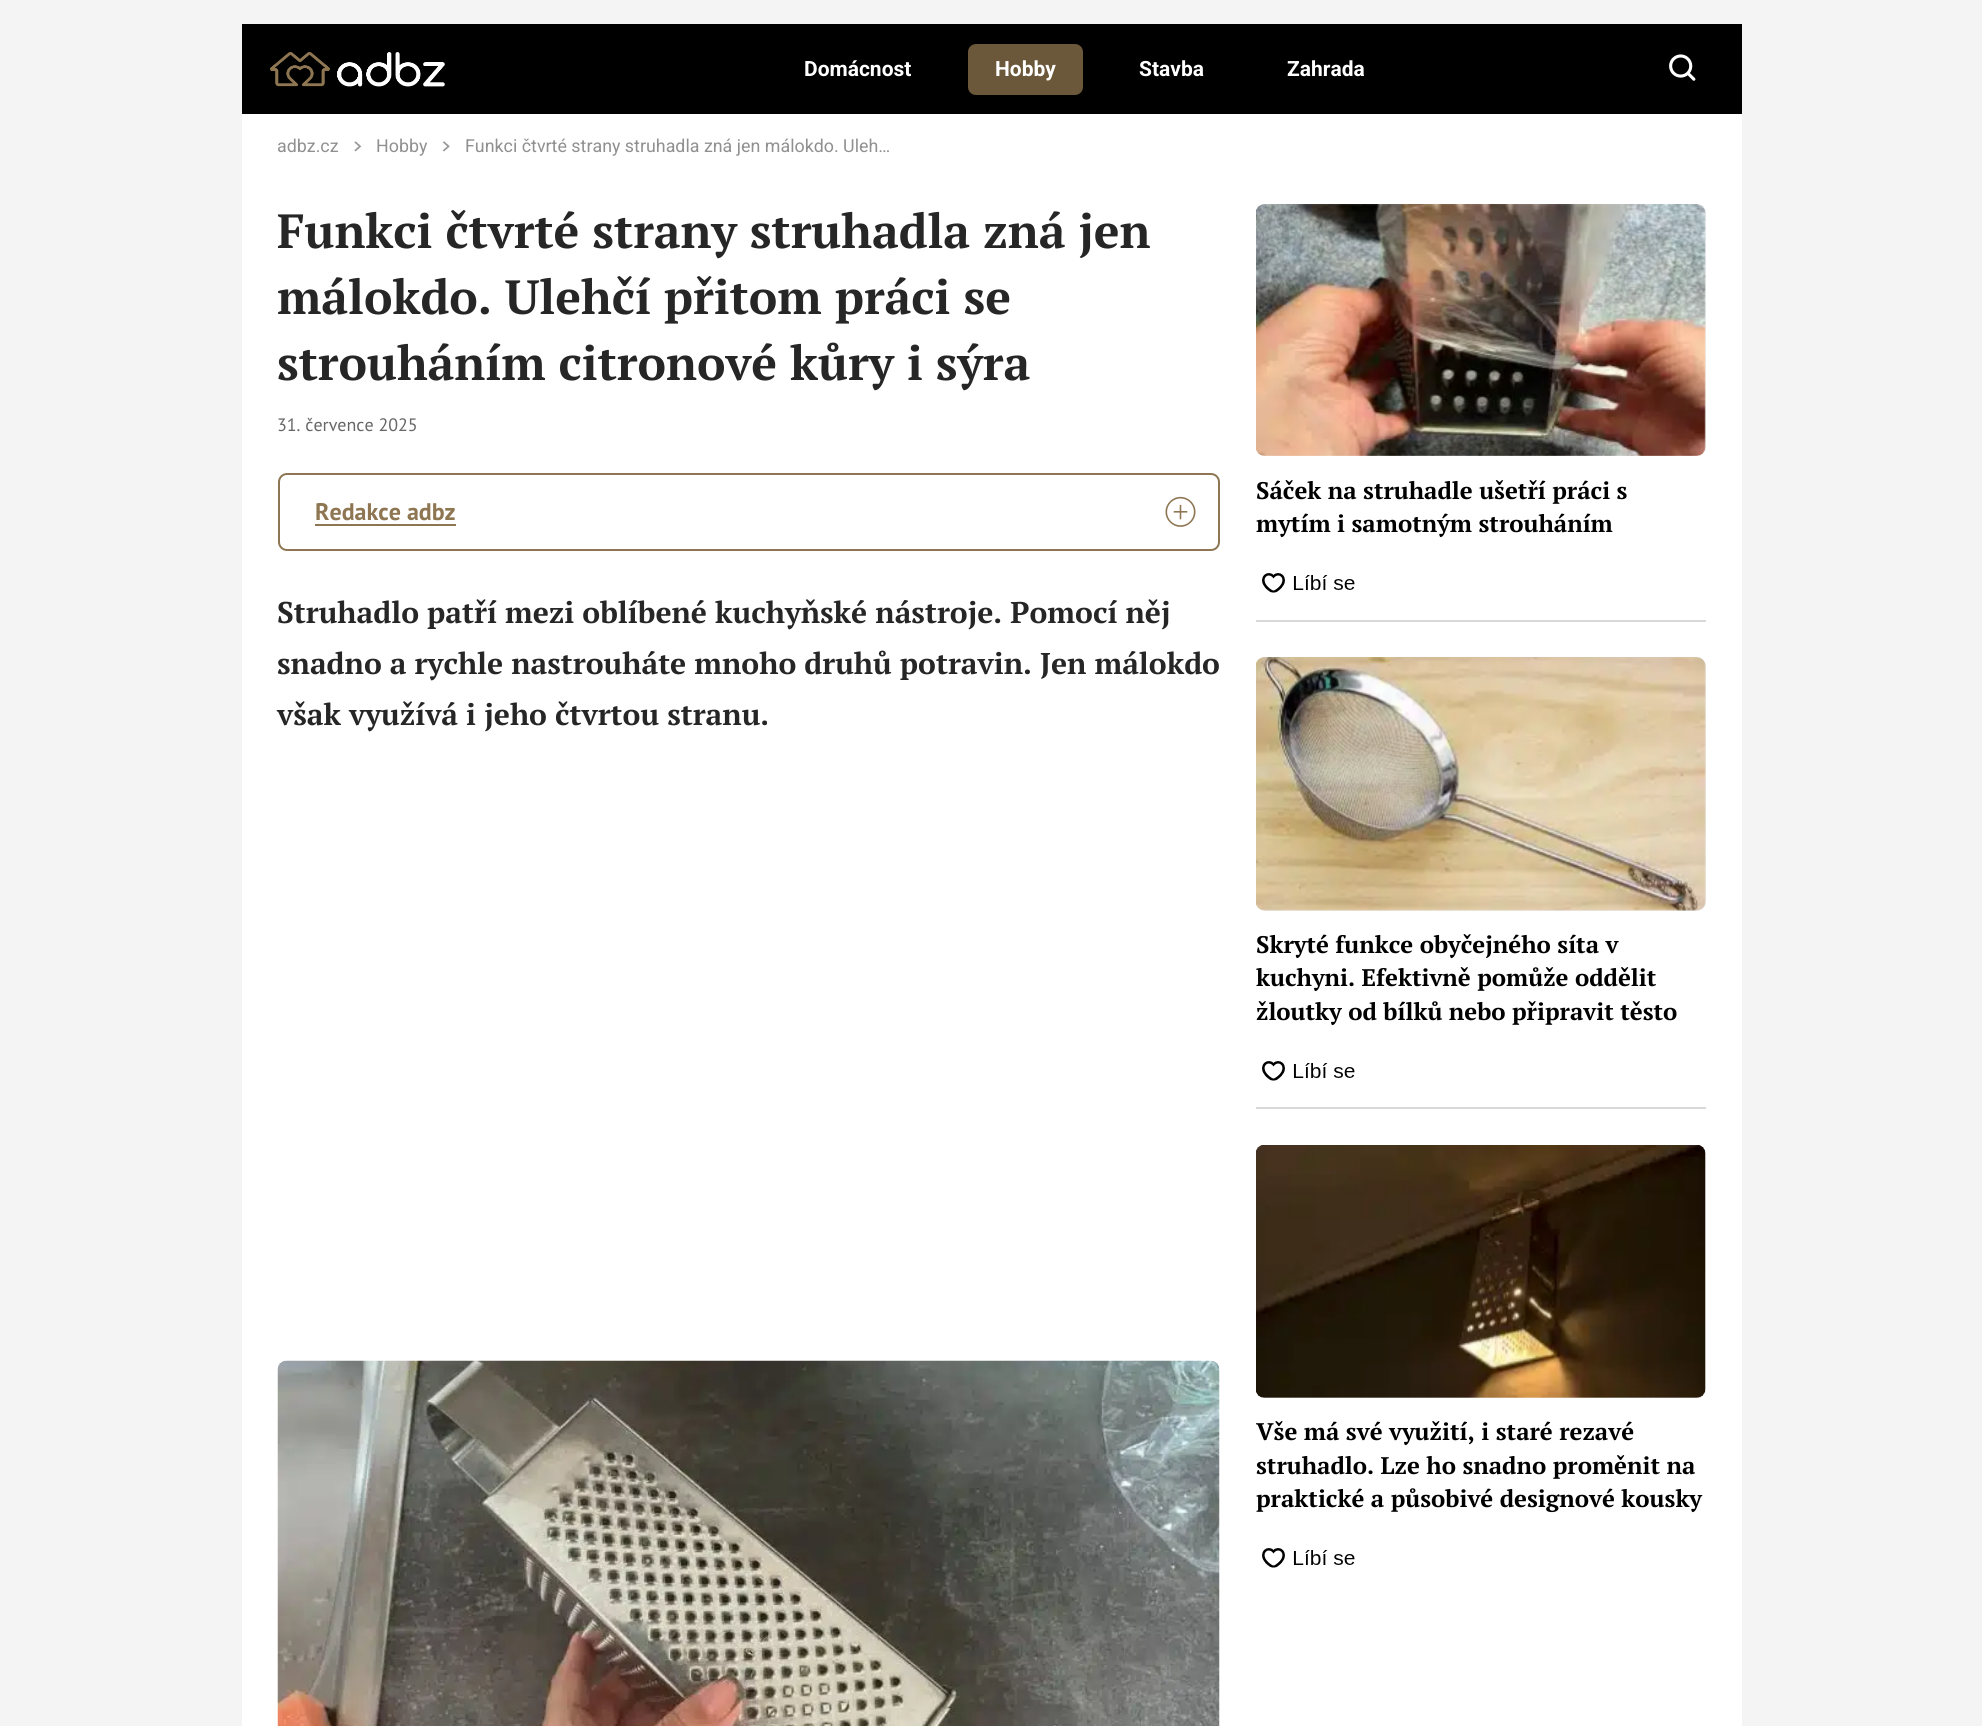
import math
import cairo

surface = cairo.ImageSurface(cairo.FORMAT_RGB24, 1982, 1726)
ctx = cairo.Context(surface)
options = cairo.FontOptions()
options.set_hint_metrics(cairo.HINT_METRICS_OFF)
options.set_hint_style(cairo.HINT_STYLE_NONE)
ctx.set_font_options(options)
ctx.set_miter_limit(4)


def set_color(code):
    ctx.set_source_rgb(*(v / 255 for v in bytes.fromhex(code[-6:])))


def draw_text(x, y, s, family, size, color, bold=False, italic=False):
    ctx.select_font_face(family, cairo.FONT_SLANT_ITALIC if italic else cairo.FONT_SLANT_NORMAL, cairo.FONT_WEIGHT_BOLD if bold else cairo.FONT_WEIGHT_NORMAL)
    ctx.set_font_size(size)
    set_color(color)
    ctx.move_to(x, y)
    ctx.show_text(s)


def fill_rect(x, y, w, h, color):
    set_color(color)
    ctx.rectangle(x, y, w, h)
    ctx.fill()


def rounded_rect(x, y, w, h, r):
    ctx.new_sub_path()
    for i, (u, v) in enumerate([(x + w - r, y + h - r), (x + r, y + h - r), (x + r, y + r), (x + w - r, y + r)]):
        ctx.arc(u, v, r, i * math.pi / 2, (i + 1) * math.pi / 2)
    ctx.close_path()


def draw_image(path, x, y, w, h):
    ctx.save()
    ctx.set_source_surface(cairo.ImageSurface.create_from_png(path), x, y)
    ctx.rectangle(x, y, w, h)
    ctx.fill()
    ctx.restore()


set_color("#f4f4f4")
ctx.paint()
fill_rect(242, 24, 1500, 90, "#000000")
draw_image("assets/img1.png", 270, 52, 175, 35)
draw_text(804, 76, "Domácnost", "Roboto", 21, "#ffffff", bold=True)
set_color("#6b5739")
rounded_rect(968, 44, 115, 51, 8)
ctx.fill()
draw_text(995, 76, "Hobby", "Roboto", 21, "#ffffff", bold=True)
draw_text(1139, 76, "Stavba", "Roboto", 21, "#ffffff", bold=True)
draw_text(1287, 76, "Zahrada", "Roboto", 21, "#ffffff", bold=True)
draw_image("assets/img2.png", 1669, 54, 27, 27)
fill_rect(242, 114, 1500, 1612, "#ffffff")
draw_text(277, 152, "adbz.cz", "Roboto", 17.85, "#909090")
draw_image("assets/img3.png", 354, 141, 8, 11)
draw_text(376, 152, "Hobby", "Roboto", 17.85, "#909090")
draw_image("assets/img4.png", 442, 141, 8, 11)
draw_text(465, 152, "Funkci čtvrté strany struhadla zná jen málokdo. Uleh…", "Roboto", 17.85, "#909090")
draw_text(277, 248, "Funkci čtvrté strany struhadla zná jen", "PT Serif", 48, "#262626", bold=True)
draw_text(277, 314, "málokdo. Ulehčí přitom práci se", "PT Serif", 48, "#262626", bold=True)
draw_text(277, 380, "strouháním citronové kůry i sýra", "PT Serif", 48, "#262626", bold=True)
draw_text(277, 431, "31. července 2025", "PT Sans", 18, "#666666")
rounded_rect(279, 474, 940, 76, 8)
set_color("#8e7652")
ctx.stroke()
draw_text(315, 520, "Redakce adbz", "PT Sans", 24, "#8e7652", bold=True)
fill_rect(315, 524, 141, 2, "#8e7652")
draw_image("assets/img5.png", 1165, 496, 31, 31)
draw_text(277, 623, "Struhadlo patří mezi oblíbené kuchyňské nástroje. Pomocí něj", "PT Serif", 30, "#262626", bold=True)
draw_text(277, 674, "snadno a rychle nastrouháte mnoho druhů potravin. Jen málokdo", "PT Serif", 30, "#262626", bold=True)
draw_text(277, 725, "však využívá i jeho čtvrtou stranu.", "PT Serif", 30, "#262626", bold=True)
draw_image("assets/img6.png", 277, 1360, 943, 366)
fill_rect(1256, 620, 450, 2, "#d9d9d9")
set_color("#eeeeee")
rounded_rect(1256, 204, 450, 252, 9)
ctx.fill()
draw_image("assets/img7.png", 1256, 204, 450, 252)
draw_text(1256, 499, "Sáček na struhadle ušetří práci s", "PT Serif", 24, "#000000", bold=True)
draw_text(1256, 532, "mytím i samotným strouháním", "PT Serif", 24, "#000000", bold=True)
draw_image("assets/img8.png", 1262, 573, 93, 20)
fill_rect(1256, 1107, 450, 2, "#d9d9d9")
set_color("#eeeeee")
rounded_rect(1256, 657, 450, 254, 9)
ctx.fill()
draw_image("assets/img9.png", 1256, 657, 450, 254)
draw_text(1256, 953, "Skryté funkce obyčejného síta v", "PT Serif", 24, "#000000", bold=True)
draw_text(1256, 986, "kuchyni. Efektivně pomůže oddělit", "PT Serif", 24, "#000000", bold=True)
draw_text(1256, 1020, "žloutky od bílků nebo připravit těsto", "PT Serif", 24, "#000000", bold=True)
draw_image("assets/img8.png", 1262, 1061, 93, 20)
set_color("#eeeeee")
rounded_rect(1256, 1145, 450, 253, 9)
ctx.fill()
draw_image("assets/img10.png", 1256, 1145, 450, 253)
draw_text(1256, 1440, "Vše má své využití, i staré rezavé", "PT Serif", 24, "#000000", bold=True)
draw_text(1256, 1474, "struhadlo. Lze ho snadno proměnit na", "PT Serif", 24, "#000000", bold=True)
draw_text(1256, 1507, "praktické a působivé designové kousky", "PT Serif", 24, "#000000", bold=True)
draw_image("assets/img8.png", 1262, 1548, 93, 20)
surface.write_to_png("output.png")
